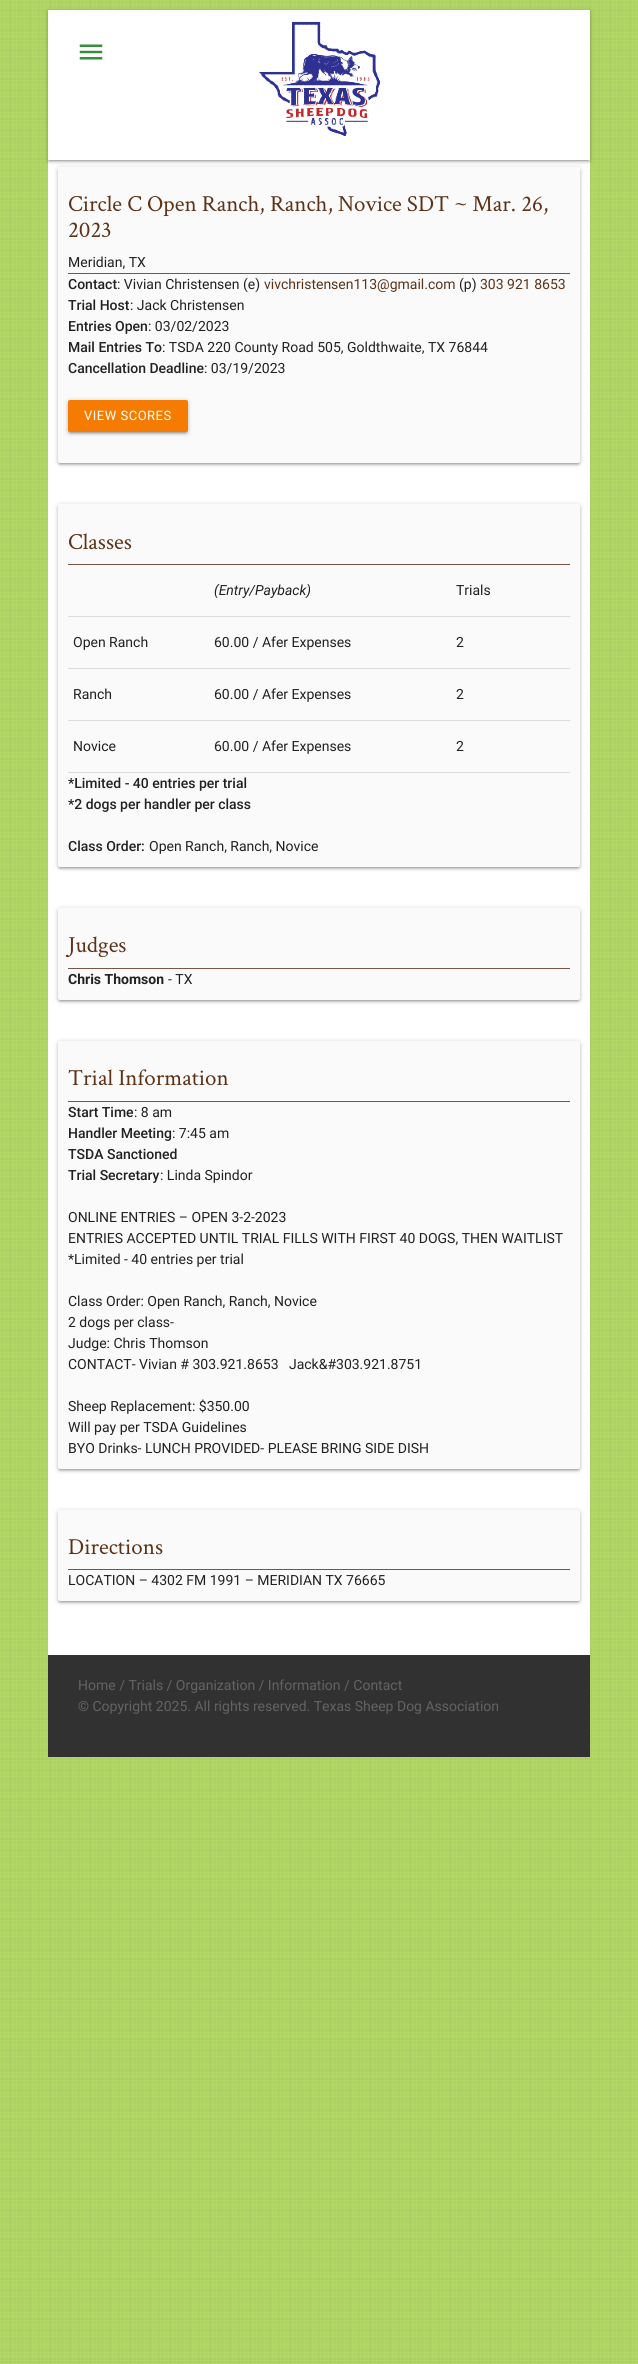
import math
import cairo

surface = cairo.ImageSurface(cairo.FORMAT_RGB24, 638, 2364)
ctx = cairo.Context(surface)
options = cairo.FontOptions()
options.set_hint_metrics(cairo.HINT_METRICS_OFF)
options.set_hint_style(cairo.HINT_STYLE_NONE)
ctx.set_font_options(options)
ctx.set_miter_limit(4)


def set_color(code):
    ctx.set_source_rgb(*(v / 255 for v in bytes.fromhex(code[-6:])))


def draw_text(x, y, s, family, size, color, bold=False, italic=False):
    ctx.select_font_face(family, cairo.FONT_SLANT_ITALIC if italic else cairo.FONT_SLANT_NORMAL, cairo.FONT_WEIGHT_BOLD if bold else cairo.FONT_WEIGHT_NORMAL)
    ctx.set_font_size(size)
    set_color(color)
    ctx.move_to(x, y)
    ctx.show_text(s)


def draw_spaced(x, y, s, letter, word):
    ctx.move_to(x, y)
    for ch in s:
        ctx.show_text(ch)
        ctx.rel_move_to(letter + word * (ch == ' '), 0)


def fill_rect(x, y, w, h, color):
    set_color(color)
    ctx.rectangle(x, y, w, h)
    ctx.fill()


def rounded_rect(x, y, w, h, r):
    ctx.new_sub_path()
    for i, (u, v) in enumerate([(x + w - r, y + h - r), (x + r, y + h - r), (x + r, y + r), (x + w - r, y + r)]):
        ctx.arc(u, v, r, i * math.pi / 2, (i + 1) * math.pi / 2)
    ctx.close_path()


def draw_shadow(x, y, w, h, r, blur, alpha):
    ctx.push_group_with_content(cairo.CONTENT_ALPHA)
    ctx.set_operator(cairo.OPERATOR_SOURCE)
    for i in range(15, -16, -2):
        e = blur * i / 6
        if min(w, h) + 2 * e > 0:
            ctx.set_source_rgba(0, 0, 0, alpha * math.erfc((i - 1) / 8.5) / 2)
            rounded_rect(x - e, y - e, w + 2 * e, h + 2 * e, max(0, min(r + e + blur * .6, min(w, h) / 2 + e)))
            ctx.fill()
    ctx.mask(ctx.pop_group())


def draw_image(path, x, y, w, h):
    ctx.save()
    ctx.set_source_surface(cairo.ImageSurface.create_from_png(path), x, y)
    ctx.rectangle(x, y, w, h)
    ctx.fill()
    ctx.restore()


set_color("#ffffff")
ctx.paint()
draw_image("assets/img1.png", 0, 0, 638, 2364)
fill_rect(48, 10, 542, 1645, "#ffffff")
ctx.save()
ctx.set_fill_rule(cairo.FILL_RULE_EVEN_ODD)
ctx.new_path()
ctx.move_to(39, 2)
ctx.line_to(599, 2)
ctx.line_to(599, 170)
ctx.line_to(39, 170)
ctx.close_path()
ctx.move_to(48, 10)
ctx.line_to(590, 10)
ctx.line_to(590, 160)
ctx.line_to(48, 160)
ctx.close_path()
ctx.clip()
set_color("#000000")
draw_shadow(48, 11, 542, 150, 0, 2.5, 0.2)
ctx.restore()
ctx.save()
ctx.rectangle(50, 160, 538, 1)
ctx.clip()
set_color("#000000")
draw_shadow(50, 15, 538, 146, 0, 0.5, 0.12)
ctx.restore()
ctx.save()
ctx.set_fill_rule(cairo.FILL_RULE_EVEN_ODD)
ctx.new_path()
ctx.move_to(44, 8)
ctx.line_to(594, 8)
ctx.line_to(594, 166)
ctx.line_to(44, 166)
ctx.close_path()
ctx.move_to(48, 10)
ctx.line_to(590, 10)
ctx.line_to(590, 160)
ctx.line_to(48, 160)
ctx.close_path()
ctx.clip()
set_color("#000000")
draw_shadow(48, 12, 542, 150, 0, 1, 0.14)
ctx.restore()
draw_image("assets/img2.png", 79, 44, 24, 16)
draw_image("assets/img3.png", 259, 21, 122, 116)
set_color("#000000")
draw_shadow(58, 168, 522, 296, 2, 2.5, 0.2)
draw_shadow(60, 172, 518, 292, 0, 0.5, 0.12)
draw_shadow(58, 169, 522, 296, 2, 1, 0.14)
set_color("#fafafa")
rounded_rect(58, 167, 522, 296, 2)
ctx.fill()
draw_text(68, 211, "Circle C Open Ranch, Ranch, Novice SDT ~ Mar. 26,", "Crimson Text", 23, "#5c3317")
draw_text(68, 237, "2023", "Crimson Text", 23, "#5c3317")
draw_text(68, 267, "Meridian, TX", "Roboto", 14, "#212121")
fill_rect(68, 273, 502, 1, "#795548")
draw_text(68, 289, "Contact", "Roboto Medium", 14, "#212121")
draw_text(117, 289, ": Vivian Christensen (e)", "Roboto", 14, "#212121")
draw_text(264, 289, "vivchristensen113@gmail.com", "Roboto", 14, "#5c3317")
draw_text(459, 289, "(p)", "Roboto", 14, "#212121")
draw_text(480, 289, "303 921 8653", "Roboto", 14, "#5c3317")
draw_text(68, 310, "Trial Host", "Roboto Medium", 14, "#212121")
draw_text(130, 310, ": Jack Christensen", "Roboto", 14, "#212121")
draw_text(68, 331, "Entries Open", "Roboto Medium", 14, "#212121")
draw_text(148, 331, ": 03/02/2023", "Roboto", 14, "#212121")
draw_text(68, 352, "Mail Entries To", "Roboto Medium", 14, "#212121")
draw_text(162, 352, ": TSDA 220 County Road 505, Goldthwaite, TX 76844", "Roboto", 14, "#212121")
draw_text(68, 373, "Cancellation Deadline", "Roboto Medium", 14, "#212121")
draw_text(204, 373, ": 03/19/2023", "Roboto", 14, "#212121")
set_color("#000000")
draw_shadow(68, 401, 120, 32, 2, 2.5, 0.2)
draw_shadow(70, 405, 116, 28, 0, 0.5, 0.12)
draw_shadow(68, 402, 120, 32, 2, 1, 0.14)
set_color("#f57c00")
rounded_rect(68, 400, 120, 32, 2)
ctx.fill()
ctx.set_font_size(13)
set_color("#ffffff")
draw_spaced(84, 420, "VIEW SCORES", 0.5, 0)
set_color("#000000")
draw_shadow(58, 505, 522, 363, 2, 2.5, 0.2)
draw_shadow(60, 509, 518, 359, 0, 0.5, 0.12)
draw_shadow(58, 506, 522, 363, 2, 1, 0.14)
set_color("#fafafa")
rounded_rect(58, 504, 522, 363, 2)
ctx.fill()
draw_text(68, 549, "Classes", "Crimson Text", 23, "#5c3317")
fill_rect(68, 564, 502, 1, "#795548")
fill_rect(68, 616, 502, 1, "#dcdcdc")
draw_text(214, 595, "(Entry/Payback)", "Roboto", 14, "#212121", italic=True)
draw_text(456, 595, "Trials", "Roboto", 14, "#212121")
fill_rect(68, 668, 502, 1, "#dcdcdc")
draw_text(73, 647, "Open Ranch", "Roboto", 14, "#212121")
draw_text(214, 647, "60.00 / Afer Expenses", "Roboto", 14, "#212121")
draw_text(456, 647, "2", "Roboto", 14, "#212121")
fill_rect(68, 720, 502, 1, "#dcdcdc")
draw_text(73, 699, "Ranch", "Roboto", 14, "#212121")
draw_text(214, 699, "60.00 / Afer Expenses", "Roboto", 14, "#212121")
draw_text(456, 699, "2", "Roboto", 14, "#212121")
fill_rect(68, 772, 502, 1, "#dcdcdc")
draw_text(73, 751, "Novice", "Roboto", 14, "#212121")
draw_text(214, 751, "60.00 / Afer Expenses", "Roboto", 14, "#212121")
draw_text(456, 751, "2", "Roboto", 14, "#212121")
draw_text(68, 788, "*Limited - 40 entries per trial", "Roboto Medium", 14, "#212121")
draw_text(68, 809, "*2 dogs per handler per class", "Roboto Medium", 14, "#212121")
draw_text(68, 851, "Class Order:", "Roboto Medium", 14, "#212121")
draw_text(149, 851, "Open Ranch, Ranch, Novice", "Roboto", 14, "#212121")
set_color("#000000")
draw_shadow(58, 909, 522, 92, 2, 2.5, 0.2)
draw_shadow(60, 913, 518, 88, 0, 0.5, 0.12)
draw_shadow(58, 910, 522, 92, 2, 1, 0.14)
set_color("#fafafa")
rounded_rect(58, 908, 522, 92, 2)
ctx.fill()
draw_text(68, 952, "Judges", "Crimson Text", 23, "#5c3317")
fill_rect(68, 968, 502, 1, "#795548")
draw_text(68, 984, "Chris Thomson", "Roboto", 14, "#212121", bold=True)
draw_text(168, 984, "- TX", "Roboto", 14, "#212121")
set_color("#000000")
draw_shadow(58, 1042, 522, 428, 2, 2.5, 0.2)
draw_shadow(60, 1046, 518, 424, 0, 0.5, 0.12)
draw_shadow(58, 1043, 522, 428, 2, 1, 0.14)
set_color("#fafafa")
rounded_rect(58, 1041, 522, 428, 2)
ctx.fill()
draw_text(68, 1085, "Trial Information", "Crimson Text", 23, "#5c3317")
fill_rect(68, 1101, 502, 1, "#795548")
draw_text(68, 1117, "Start Time", "Roboto Medium", 14, "#212121")
draw_text(134, 1117, ": 8 am", "Roboto", 14, "#212121")
draw_text(68, 1138, "Handler Meeting", "Roboto Medium", 14, "#212121")
draw_text(172, 1138, ": 7:45 am", "Roboto", 14, "#212121")
draw_text(68, 1159, "TSDA Sanctioned", "Roboto Medium", 14, "#212121")
draw_text(68, 1180, "Trial Secretary", "Roboto Medium", 14, "#212121")
draw_text(160, 1180, ": Linda Spindor", "Roboto", 14, "#212121")
draw_text(68, 1222, "ONLINE ENTRIES – OPEN 3-2-2023", "Roboto", 14, "#212121")
draw_text(68, 1243, "ENTRIES ACCEPTED UNTIL TRIAL FILLS WITH FIRST 40 DOGS, THEN WAITLIST", "Roboto", 14, "#212121")
draw_text(68, 1264, "*Limited - 40 entries per trial", "Roboto", 14, "#212121")
draw_text(68, 1306, "Class Order: Open Ranch, Ranch, Novice", "Roboto", 14, "#212121")
draw_text(68, 1327, "2 dogs per class-", "Roboto", 14, "#212121")
draw_text(68, 1348, "Judge: Chris Thomson", "Roboto", 14, "#212121")
draw_text(68, 1369, "CONTACT- Vivian # 303.921.8653   Jack&#303.921.8751", "Roboto", 14, "#212121")
draw_text(68, 1411, "Sheep Replacement: $350.00", "Roboto", 14, "#212121")
draw_text(68, 1432, "Will pay per TSDA Guidelines", "Roboto", 14, "#212121")
draw_text(68, 1453, "BYO Drinks- LUNCH PROVIDED- PLEASE BRING SIDE DISH", "Roboto", 14, "#212121")
set_color("#000000")
draw_shadow(58, 1511, 522, 91, 2, 2.5, 0.2)
draw_shadow(60, 1515, 518, 87, 0, 0.5, 0.12)
draw_shadow(58, 1512, 522, 91, 2, 1, 0.14)
set_color("#fafafa")
rounded_rect(58, 1510, 522, 91, 2)
ctx.fill()
draw_text(68, 1554, "Directions", "Crimson Text", 23, "#5c3317")
fill_rect(68, 1569, 502, 1, "#795548")
draw_text(68, 1585, "LOCATION – 4302 FM 1991 – MERIDIAN TX 76665", "Roboto", 14, "#212121")
fill_rect(48, 1655, 542, 102, "#313131")
draw_text(78, 1690, "Home / Trials / Organization / Information / Contact", "Roboto", 14, "#636363")
draw_text(78, 1711, "© Copyright 2025. All rights reserved. Texas Sheep Dog Association", "Roboto", 14, "#636363")
surface.write_to_png("output.png")
